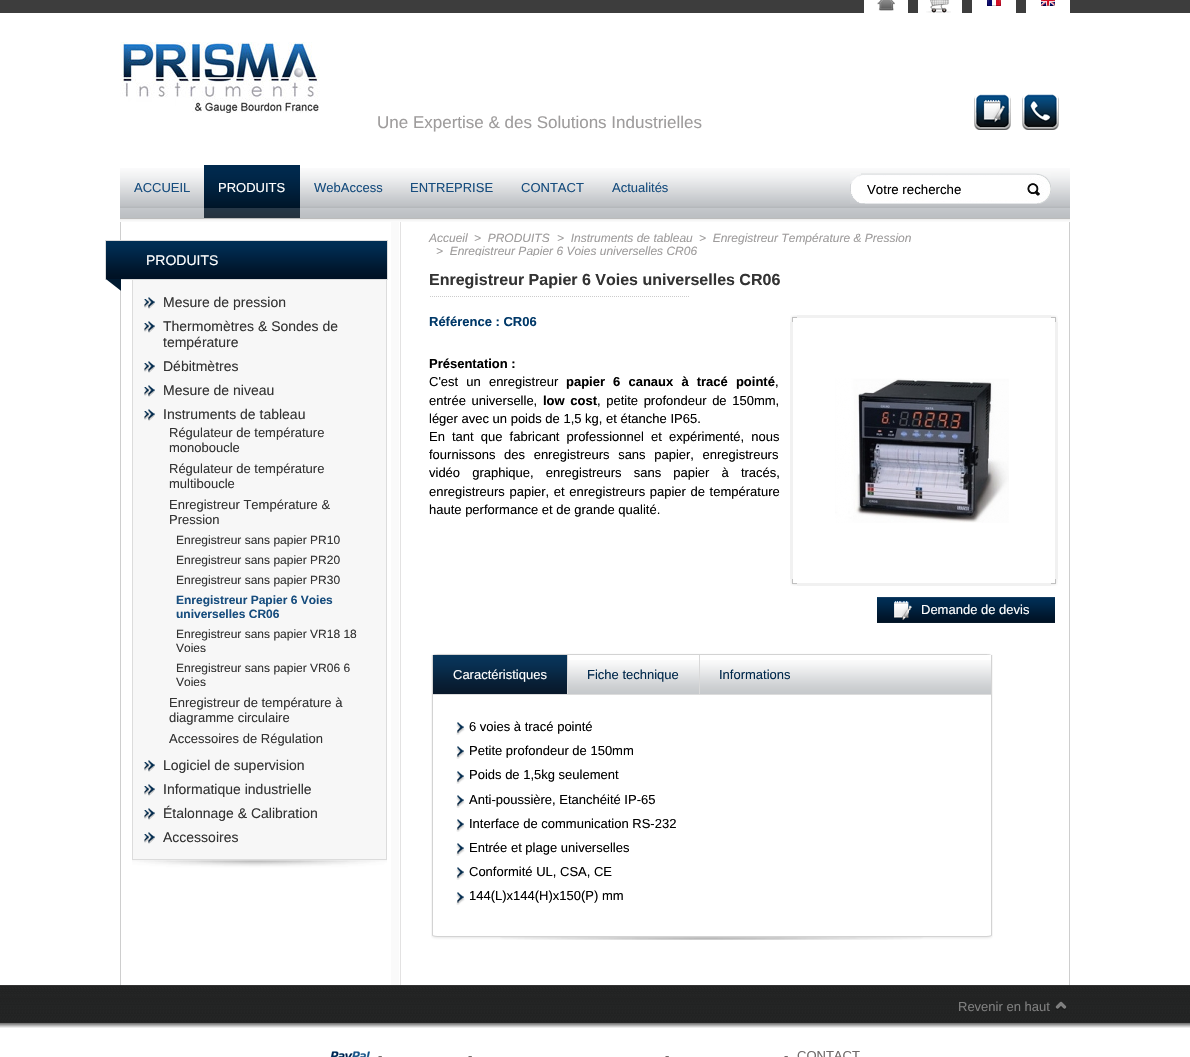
#include "include/core/SkBlurTypes.h"
#include "include/core/SkCanvas.h"
#include "include/core/SkData.h"
#include "include/core/SkFont.h"
#include "include/core/SkFontMgr.h"
#include "include/core/SkImage.h"
#include "include/core/SkMaskFilter.h"
#include "include/core/SkPaint.h"
#include "include/core/SkPathBuilder.h"
#include "include/core/SkTextBlob.h"
#include "include/effects/SkDashPathEffect.h"
#include "include/effects/SkGradientShader.h"
#include "include/utils/SkParsePath.h"

extern sk_sp<SkFontMgr> fontMgr;

void draw(SkCanvas* canvas) {
    SkPaint p;
    p.setAntiAlias(true);
    auto font = [&](const char* family, int weight, float size, bool italic = false) {
        SkFontStyle style(weight, SkFontStyle::kNormal_Width,
            italic ? SkFontStyle::kItalic_Slant : SkFontStyle::kUpright_Slant);
        SkFont result(fontMgr->matchFamilyStyle(family, style), size);
        result.setSubpixel(true);
        return result;
    };
    auto drawTracked = [&](const char* s, float x, float y, const SkFont& font, const SkPaint& ink, float letter, float word) {
        std::vector<SkGlyphID> glyphs(font.countText(s, strlen(s), SkTextEncoding::kUTF8));
        std::vector<float> xs(glyphs.size());
        font.textToGlyphs(s, strlen(s), SkTextEncoding::kUTF8, glyphs);
        font.getXPos(glyphs, xs, x);
        float extra = 0;
        for (size_t i = 0; i < glyphs.size(); i++) {
            xs[i] += extra;
            extra += letter + word * (glyphs[i] == font.unicharToGlyph(' '));
        }
        canvas->drawTextBlob(SkTextBlob::MakeFromPosHGlyphs(glyphs, xs, y, font), 0, 0, ink);
    };
    auto drawPhoto = [&](const char* path, float l, float t, float r, float b) {
        auto image = SkImages::DeferredFromEncodedData(SkData::MakeFromFileName(path));
        canvas->drawImageRect(image, SkRect::MakeLTRB(l, t, r, b), SkSamplingOptions());
    };
    canvas->clear(0xFFFFFFFF);
    p.setColor(0xFF3D3D3D);
    canvas->drawRect(SkRect::MakeLTRB(0, 0, 1190, 13), p);
    p.setColor(0xFFFFFFFF);
    canvas->drawRect(SkRect::MakeLTRB(864, 0, 908, 13), p);
    drawPhoto("media/1.png", 877, 0, 895, 11);
    canvas->drawRect(SkRect::MakeLTRB(918, 0, 962, 13), p);
    drawPhoto("media/2.png", 926, 0, 951, 13);
    canvas->drawRect(SkRect::MakeLTRB(972, 0, 1016, 13), p);
    drawPhoto("media/3.png", 987, 0, 1001, 6);
    canvas->drawRect(SkRect::MakeLTRB(1026, 0, 1070, 13), p);
    drawPhoto("media/4.png", 1041, 0, 1055, 6);
    drawPhoto("media/5.png", 120, 42, 320, 113);
    auto font1 = font("Liberation Sans", 400, 17);
    p.setColor(0xFF9E9C9C);
    canvas->drawString("Une Expertise & des Solutions Industrielles", 377, 128, font1, p);
    drawPhoto("media/6.png", 974, 94, 1011, 130);
    drawPhoto("media/7.png", 1022, 94, 1059, 130);
    p.setColor(0xFFCECECE);
    canvas->drawRect(SkRect::MakeLTRB(1069, 220, 1070, 985), p);
    canvas->drawRect(SkRect::MakeLTRB(120, 220, 121, 985), p);
    drawPhoto("media/8.png", 120, 168, 1070, 222);
    auto font2 = font("Liberation Sans", 400, 13);
    p.setColor(0xFF174D7E);
    canvas->drawString("ACCUEIL", 134, 192, font2, p);
    drawPhoto("media/9.png", 204, 165, 300, 218);
    p.setColor(0xFFFFFFFF);
    canvas->drawString("PRODUITS", 218, 192, font2, p);
    p.setColor(0xFF174D7E);
    {
        const struct { const char* s; float x, y; } items[] = {
            {"WebAccess", 314, 192},
            {"ENTREPRISE", 410, 192},
            {"CONTACT", 521, 192},
            {"Actualités", 612, 192},
        };
        for (auto [s, x, y] : items) {
            canvas->drawString(s, x, y, font2, p);
        }
    }
    drawPhoto("media/10.png", 850, 173, 1051, 204);
    auto font3 = font("Liberation Sans", 400, 13.25f);
    p.setColor(0xFF000000);
    canvas->drawString("Votre recherche", 867, 194, font3, p);
    drawPhoto("media/11.png", 1027, 183, 1043, 198);
    drawPhoto("media/12.png", 391, 222, 401, 985);
    p.setColor(0xFFF7F7F7);
    canvas->drawRect(SkRect::MakeLTRB(133, 280, 386, 859), p);
    drawPhoto("media/13.png", 132, 860, 387, 868);
    drawPhoto("media/14.png", 106, 241, 387, 279);
    p.setStyle(SkPaint::kStroke_Style);
    p.setStrokeWidth(1);
    p.setColor(0xFFDCDCDC);
    canvas->drawRect(SkRect::MakeLTRB(105.5f, 240.5f, 387.5f, 279.5f), p);
    auto font4 = font("Liberation Sans", 400, 14);
    p.setStyle(SkPaint::kFill_Style);
    p.setColor(0xFFFFFFFF);
    canvas->drawString("PRODUITS", 146, 265, font4, p);
    drawPhoto("media/15.png", 106, 279, 121, 291);
    {
        const struct { float l, t, r, b; SkColor color; } items[] = {
            {386, 280, 387, 860, 0xFFDCDCDC},
            {132, 859, 387, 860, 0xFFDCDCDC},
            {132, 280, 133, 860, 0xFFDCDCDC},
        };
        for (auto [l, t, r, b, color] : items) {
            p.setColor(color);
            canvas->drawRect(SkRect::MakeLTRB(l, t, r, b), p);
        }
    }
    drawPhoto("media/16.png", 144, 297, 155, 309);
    p.setColor(0xFF333333);
    canvas->drawString("Mesure de pression", 163, 307, font4, p);
    drawPhoto("media/16.png", 144, 321, 155, 333);
    canvas->drawString("Thermomètres & Sondes de", 163, 331, font4, p);
    canvas->drawString("température", 163, 347, font4, p);
    drawPhoto("media/16.png", 144, 361, 155, 373);
    canvas->drawString("Débitmètres", 163, 371, font4, p);
    drawPhoto("media/16.png", 144, 385, 155, 397);
    canvas->drawString("Mesure de niveau", 163, 395, font4, p);
    drawPhoto("media/16.png", 144, 409, 155, 421);
    canvas->drawString("Instruments de tableau", 163, 419, font4, p);
    {
        const struct { const char* s; float x, y; } items[] = {
            {"Régulateur de température", 169, 437},
            {"monoboucle", 169, 452},
            {"Régulateur de température", 169, 473},
            {"multiboucle", 169, 488},
            {"Enregistreur Température &", 169, 509},
            {"Pression", 169, 524},
        };
        for (auto [s, x, y] : items) {
            canvas->drawString(s, x, y, font2, p);
        }
    }
    auto font5 = font("Liberation Sans", 400, 12);
    {
        const struct { const char* s; float x, y; } items[] = {
            {"Enregistreur sans papier PR10", 176, 544},
            {"Enregistreur sans papier PR20", 176, 564},
            {"Enregistreur sans papier PR30", 176, 584},
        };
        for (auto [s, x, y] : items) {
            canvas->drawString(s, x, y, font5, p);
        }
    }
    auto font6 = font("Liberation Sans", 700, 12);
    p.setColor(0xFF174D7E);
    canvas->drawString("Enregistreur Papier 6 Voies", 176, 604, font6, p);
    canvas->drawString("universelles CR06", 176, 618, font6, p);
    p.setColor(0xFF333333);
    {
        const struct { const char* s; float x, y; } items[] = {
            {"Enregistreur sans papier VR18 18", 176, 638},
            {"Voies", 176, 652},
            {"Enregistreur sans papier VR06 6", 176, 672},
            {"Voies", 176, 686},
        };
        for (auto [s, x, y] : items) {
            canvas->drawString(s, x, y, font5, p);
        }
    }
    {
        const struct { const char* s; float x, y; } items[] = {
            {"Enregistreur de température à", 169, 707},
            {"diagramme circulaire", 169, 722},
            {"Accessoires de Régulation", 169, 743},
        };
        for (auto [s, x, y] : items) {
            canvas->drawString(s, x, y, font2, p);
        }
    }
    drawPhoto("media/16.png", 144, 760, 155, 772);
    canvas->drawString("Logiciel de supervision", 163, 770, font4, p);
    drawPhoto("media/16.png", 144, 784, 155, 796);
    canvas->drawString("Informatique industrielle", 163, 794, font4, p);
    drawPhoto("media/16.png", 144, 808, 155, 820);
    canvas->drawString("Étalonnage & Calibration", 163, 818, font4, p);
    drawPhoto("media/16.png", 144, 832, 155, 844);
    canvas->drawString("Accessoires", 163, 842, font4, p);
    auto font7 = font("Liberation Sans", 400, 12, true);
    p.setColor(0xFF9E9C9C);
    {
        const struct { const char* s; float x, y; } items[] = {
            {"Accueil", 429, 242},
            {">  PRODUITS", 474, 242},
            {">  Instruments de tableau", 557, 242},
            {">  Enregistreur Température & Pression", 699, 242},
        };
        for (auto [s, x, y] : items) {
            canvas->drawString(s, x, y, font7, p);
        }
    }
    canvas->save();
    canvas->clipRect(SkRect::MakeLTRB(419, 220, 1069, 256));
    canvas->drawString(">  Enregistreur Papier 6 Voies universelles CR06", 436, 255, font7, p);
    canvas->restore();
    drawPhoto("media/17.png", 430, 296, 689, 297);
    auto font8 = font("Liberation Sans", 700, 16);
    p.setColor(0xFF333333);
    canvas->drawString("Enregistreur Papier 6 Voies universelles CR06", 429, 285, font8, p);
    auto font9 = font("Liberation Sans", 700, 13);
    p.setColor(0xFF003868);
    canvas->drawString("Référence : CR06", 429, 326, font9, p);
    p.setColor(0xFF000000);
    canvas->drawString("Présentation :", 429, 368, font9, p);
    drawTracked("C'est un enregistreur", 429, 386, font2, p, 0, 4.5f);
    drawTracked("papier 6 canaux à tracé pointé", 566, 386, font9, p, 0, 4.5f);
    canvas->drawString(",", 775, 386, font2, p);
    drawTracked("entrée universelle,", 429, 405, font2, p, 0, 2);
    drawTracked("low cost", 543, 405, font9, p, 0, 2);
    drawTracked(", petite profondeur de 150mm,", 597, 405, font2, p, 0, 2);
    canvas->drawString("léger avec un poids de 1,5 kg, et étanche IP65.", 429, 423, font2, p);
    drawTracked("En tant que fabricant professionnel et expérimenté, nous", 429, 441, font2, p, 0, 3.5f);
    drawTracked("fournissons des enregistreurs sans papier, enregistreurs", 429, 459, font2, p, 0, 5);
    drawTracked("vidéo graphique, enregistreurs sans papier à tracés,", 429, 477, font2, p, 0, 8.5f);
    drawTracked("enregistreurs papier, et enregistreurs papier de température", 429, 496, font2, p, 0, 1);
    canvas->drawString("haute performance et de grande qualité.", 429, 514, font2, p);
    drawPhoto("media/18.png", 790, 315, 797, 322);
    p.setColor(0xFFF1F1F1);
    canvas->drawRect(SkRect::MakeLTRB(797, 315, 1051, 318), p);
    drawPhoto("media/19.png", 1051, 315, 1058, 322);
    canvas->drawRect(SkRect::MakeLTRB(790, 322, 793, 579), p);
    drawPhoto("media/20.png", 835, 378, 1009, 523);
    canvas->drawRect(SkRect::MakeLTRB(1055, 322, 1058, 579), p);
    drawPhoto("media/21.png", 790, 579, 797, 586);
    canvas->drawRect(SkRect::MakeLTRB(797, 583, 1051, 586), p);
    drawPhoto("media/22.png", 1051, 579, 1058, 586);
    drawPhoto("media/23.png", 877, 597, 1055, 623);
    p.setColor(0xFFFFFFFF);
    canvas->drawString("Demande de devis", 921, 614, font2, p);
    drawPhoto("media/24.png", 431, 655, 993, 935);
    drawPhoto("media/25.png", 431, 653, 993, 655);
    drawPhoto("media/26.png", 568, 660, 991, 694);
    p.setColor(0xFFDCDCDC);
    canvas->drawRect(SkRect::MakeLTRB(433, 694, 991, 695), p);
    drawPhoto("media/27.png", 433, 655, 567, 694);
    p.setColor(0xFFFFFFFF);
    canvas->drawString("Caractéristiques", 453, 679, font2, p);
    p.setColor(0xFFD9D9D9);
    canvas->drawRect(SkRect::MakeLTRB(567, 655, 568, 694), p);
    p.setColor(0xFF00284B);
    canvas->drawString("Fiche technique", 587, 679, font2, p);
    p.setColor(0xFFD9D9D9);
    canvas->drawRect(SkRect::MakeLTRB(699, 655, 700, 694), p);
    p.setColor(0xFF00284B);
    canvas->drawString("Informations", 719, 679, font2, p);
    drawPhoto("media/28.png", 456, 722, 465, 735);
    p.setColor(0xFF000000);
    canvas->drawString("6 voies à tracé pointé", 469, 731, font2, p);
    drawPhoto("media/28.png", 456, 746, 465, 759);
    canvas->drawString("Petite profondeur de 150mm", 469, 755, font2, p);
    drawPhoto("media/28.png", 456, 771, 465, 784);
    canvas->drawString("Poids de 1,5kg seulement", 469, 779, font2, p);
    drawPhoto("media/28.png", 456, 795, 465, 808);
    canvas->drawString("Anti-poussière, Etanchéité IP-65", 469, 804, font2, p);
    drawPhoto("media/28.png", 456, 819, 465, 832);
    canvas->drawString("Interface de communication RS-232", 469, 828, font2, p);
    drawPhoto("media/28.png", 456, 843, 465, 856);
    canvas->drawString("Entrée et plage universelles", 469, 852, font2, p);
    drawPhoto("media/28.png", 456, 867, 465, 880);
    canvas->drawString("Conformité UL, CSA, CE", 469, 876, font2, p);
    drawPhoto("media/28.png", 456, 892, 465, 905);
    canvas->drawString("144(L)x144(H)x150(P) mm", 469, 900, font2, p);
    drawPhoto("media/29.png", 431, 935, 993, 940);
    drawPhoto("media/30.png", 0, 985, 1190, 1028);
    drawPhoto("media/31.png", 1055, 1001, 1067, 1010);
    p.setColor(0xFF7F7F7F);
    canvas->drawString("Revenir en haut", 958, 1011, font2, p);
    drawPhoto("media/32.png", 330, 1051, 370, 1057);
    p.setColor(0xFF6F6969);
    {
        const struct { const char* s; float x, y; } items[] = {
            {"-", 378, 1060},
            {"-", 468, 1060},
            {"-", 665, 1060},
            {"-", 784, 1060},
            {"CONTACT", 797, 1060},
        };
        for (auto [s, x, y] : items) {
            canvas->drawString(s, x, y, font2, p);
        }
    }
}
